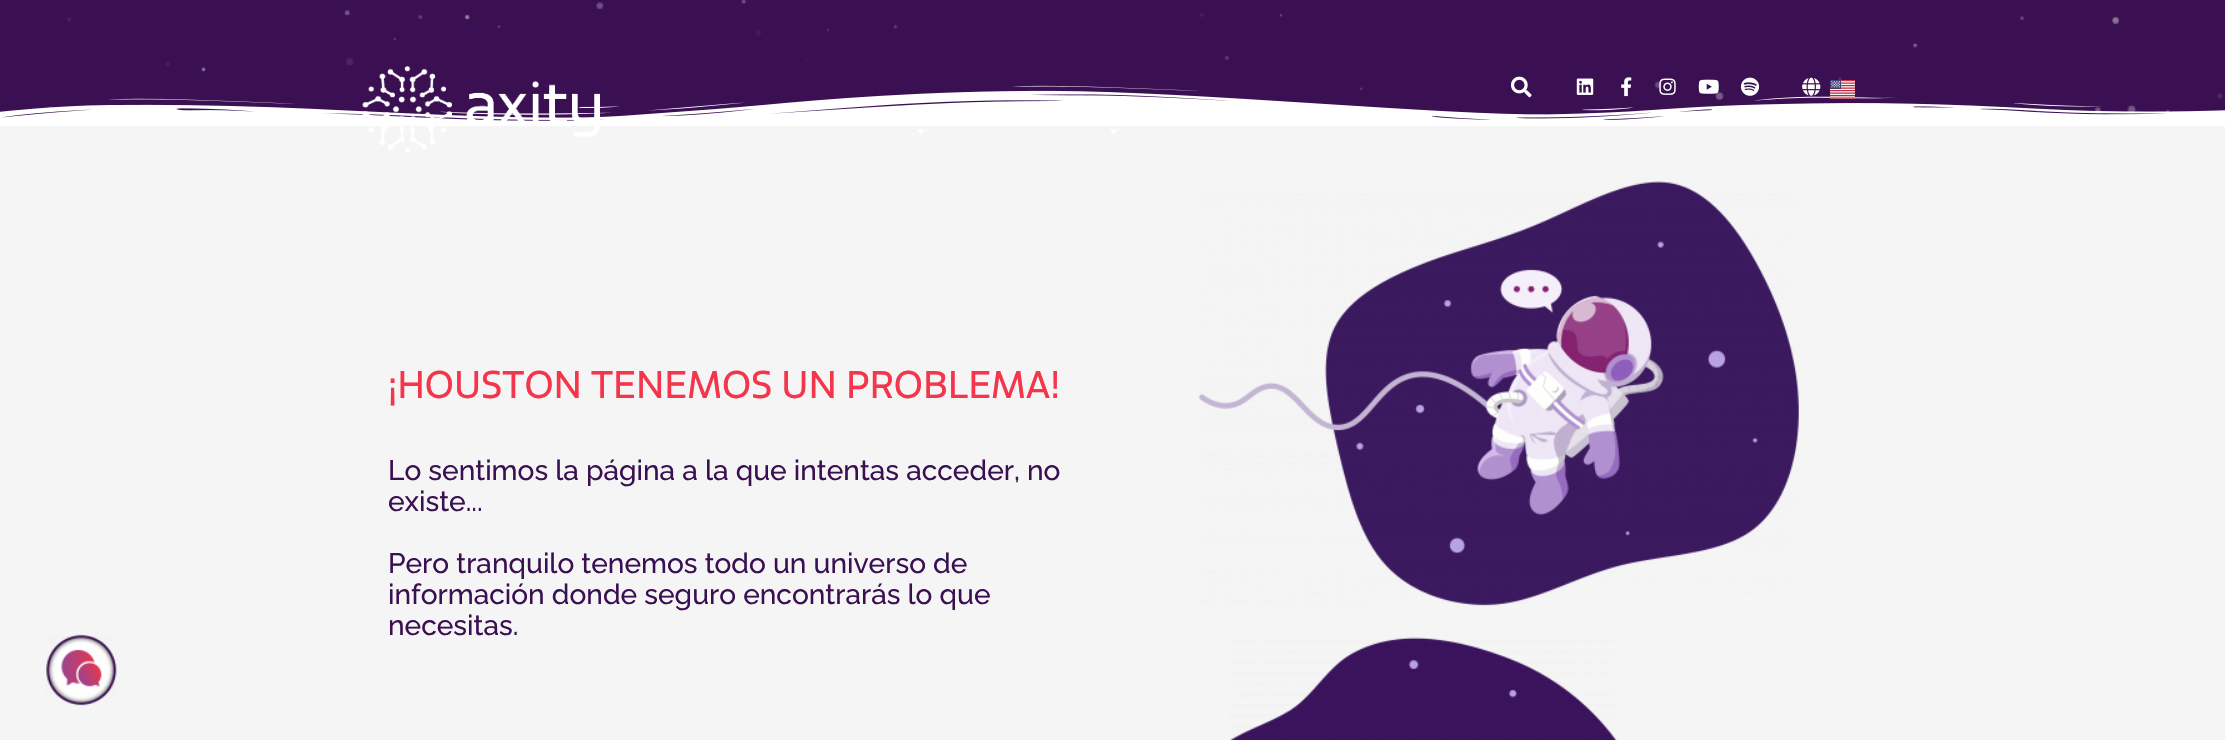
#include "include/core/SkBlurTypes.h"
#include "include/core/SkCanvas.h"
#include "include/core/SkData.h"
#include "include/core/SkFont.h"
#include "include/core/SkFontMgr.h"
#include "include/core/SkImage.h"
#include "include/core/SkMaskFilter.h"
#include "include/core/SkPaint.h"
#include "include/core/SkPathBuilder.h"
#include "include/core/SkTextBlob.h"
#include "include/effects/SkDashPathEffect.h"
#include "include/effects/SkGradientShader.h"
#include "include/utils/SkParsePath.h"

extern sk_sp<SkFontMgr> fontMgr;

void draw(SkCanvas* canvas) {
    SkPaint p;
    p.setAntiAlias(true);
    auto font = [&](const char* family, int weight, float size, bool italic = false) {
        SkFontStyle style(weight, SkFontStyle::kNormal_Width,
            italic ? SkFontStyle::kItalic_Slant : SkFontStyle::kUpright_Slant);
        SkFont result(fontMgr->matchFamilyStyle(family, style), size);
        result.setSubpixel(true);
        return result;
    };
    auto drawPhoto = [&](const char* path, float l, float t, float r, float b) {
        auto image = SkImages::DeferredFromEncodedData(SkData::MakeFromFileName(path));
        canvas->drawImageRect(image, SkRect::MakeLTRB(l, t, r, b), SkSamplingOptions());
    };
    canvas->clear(0xFFF5F5F5);
    p.setColor(0xFF3A1052);
    canvas->drawRect(SkRect::MakeLTRB(0, 0, 2225, 121), p);
    drawPhoto("media/10.png", 9, 0, 2223, 120);
    drawPhoto("media/11.png", 0, 85, 2225, 126);
    drawPhoto("media/1.png", 362, 66, 600, 152);
    drawPhoto("media/2.png", 1510, 76, 1532, 98);
    drawPhoto("media/3.png", 1576, 78, 1594, 95);
    drawPhoto("media/4.png", 1621, 77, 1632, 97);
    drawPhoto("media/5.png", 1659, 78, 1676, 95);
    drawPhoto("media/6.png", 1698, 79, 1719, 94);
    drawPhoto("media/7.png", 1740, 77, 1760, 96);
    drawPhoto("media/8.png", 1802, 77, 1821, 96);
    drawPhoto("media/9.png", 1830, 80, 1855, 99);
    p.setColor(0xFFFFFFFF);
    canvas->drawPath(SkPathBuilder().moveTo(925, 129.5f).lineTo(921, 135).lineTo(917, 129.5f).close().detach(), p);
    canvas->drawPath(SkPathBuilder().moveTo(1117.5f, 129.5f).lineTo(1113.5f, 135).lineTo(1109.5f, 129.5f).close().detach(), p);
    auto font1 = font("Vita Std", 400, 37.5f);
    p.setColor(0xFFF4364C);
    canvas->drawString("¡HOUSTON TENEMOS UN PROBLEMA!", 388, 398, font1, p);
    auto font2 = font("Raleway", 500, 28.1f);
    p.setColor(0xFF3A1052);
    {
        const struct { const char* s; float x, y; } items[] = {
            {"Lo sentimos la página a la que intentas acceder, no", 388, 480},
            {"existe...", 388, 511},
            {"Pero tranquilo tenemos todo un universo de", 388, 573},
            {"información donde seguro encontrarás lo que", 388, 604},
            {"necesitas.", 388, 635},
        };
        for (auto [s, x, y] : items) {
            canvas->drawString(s, x, y, font2, p);
        }
    }
    drawPhoto("media/12.png", 1198, 181, 1799, 606);
    drawPhoto("media/13.png", 1229, 637, 1617, 740);
    drawPhoto("media/14.png", 46, 634, 117, 706);
}
